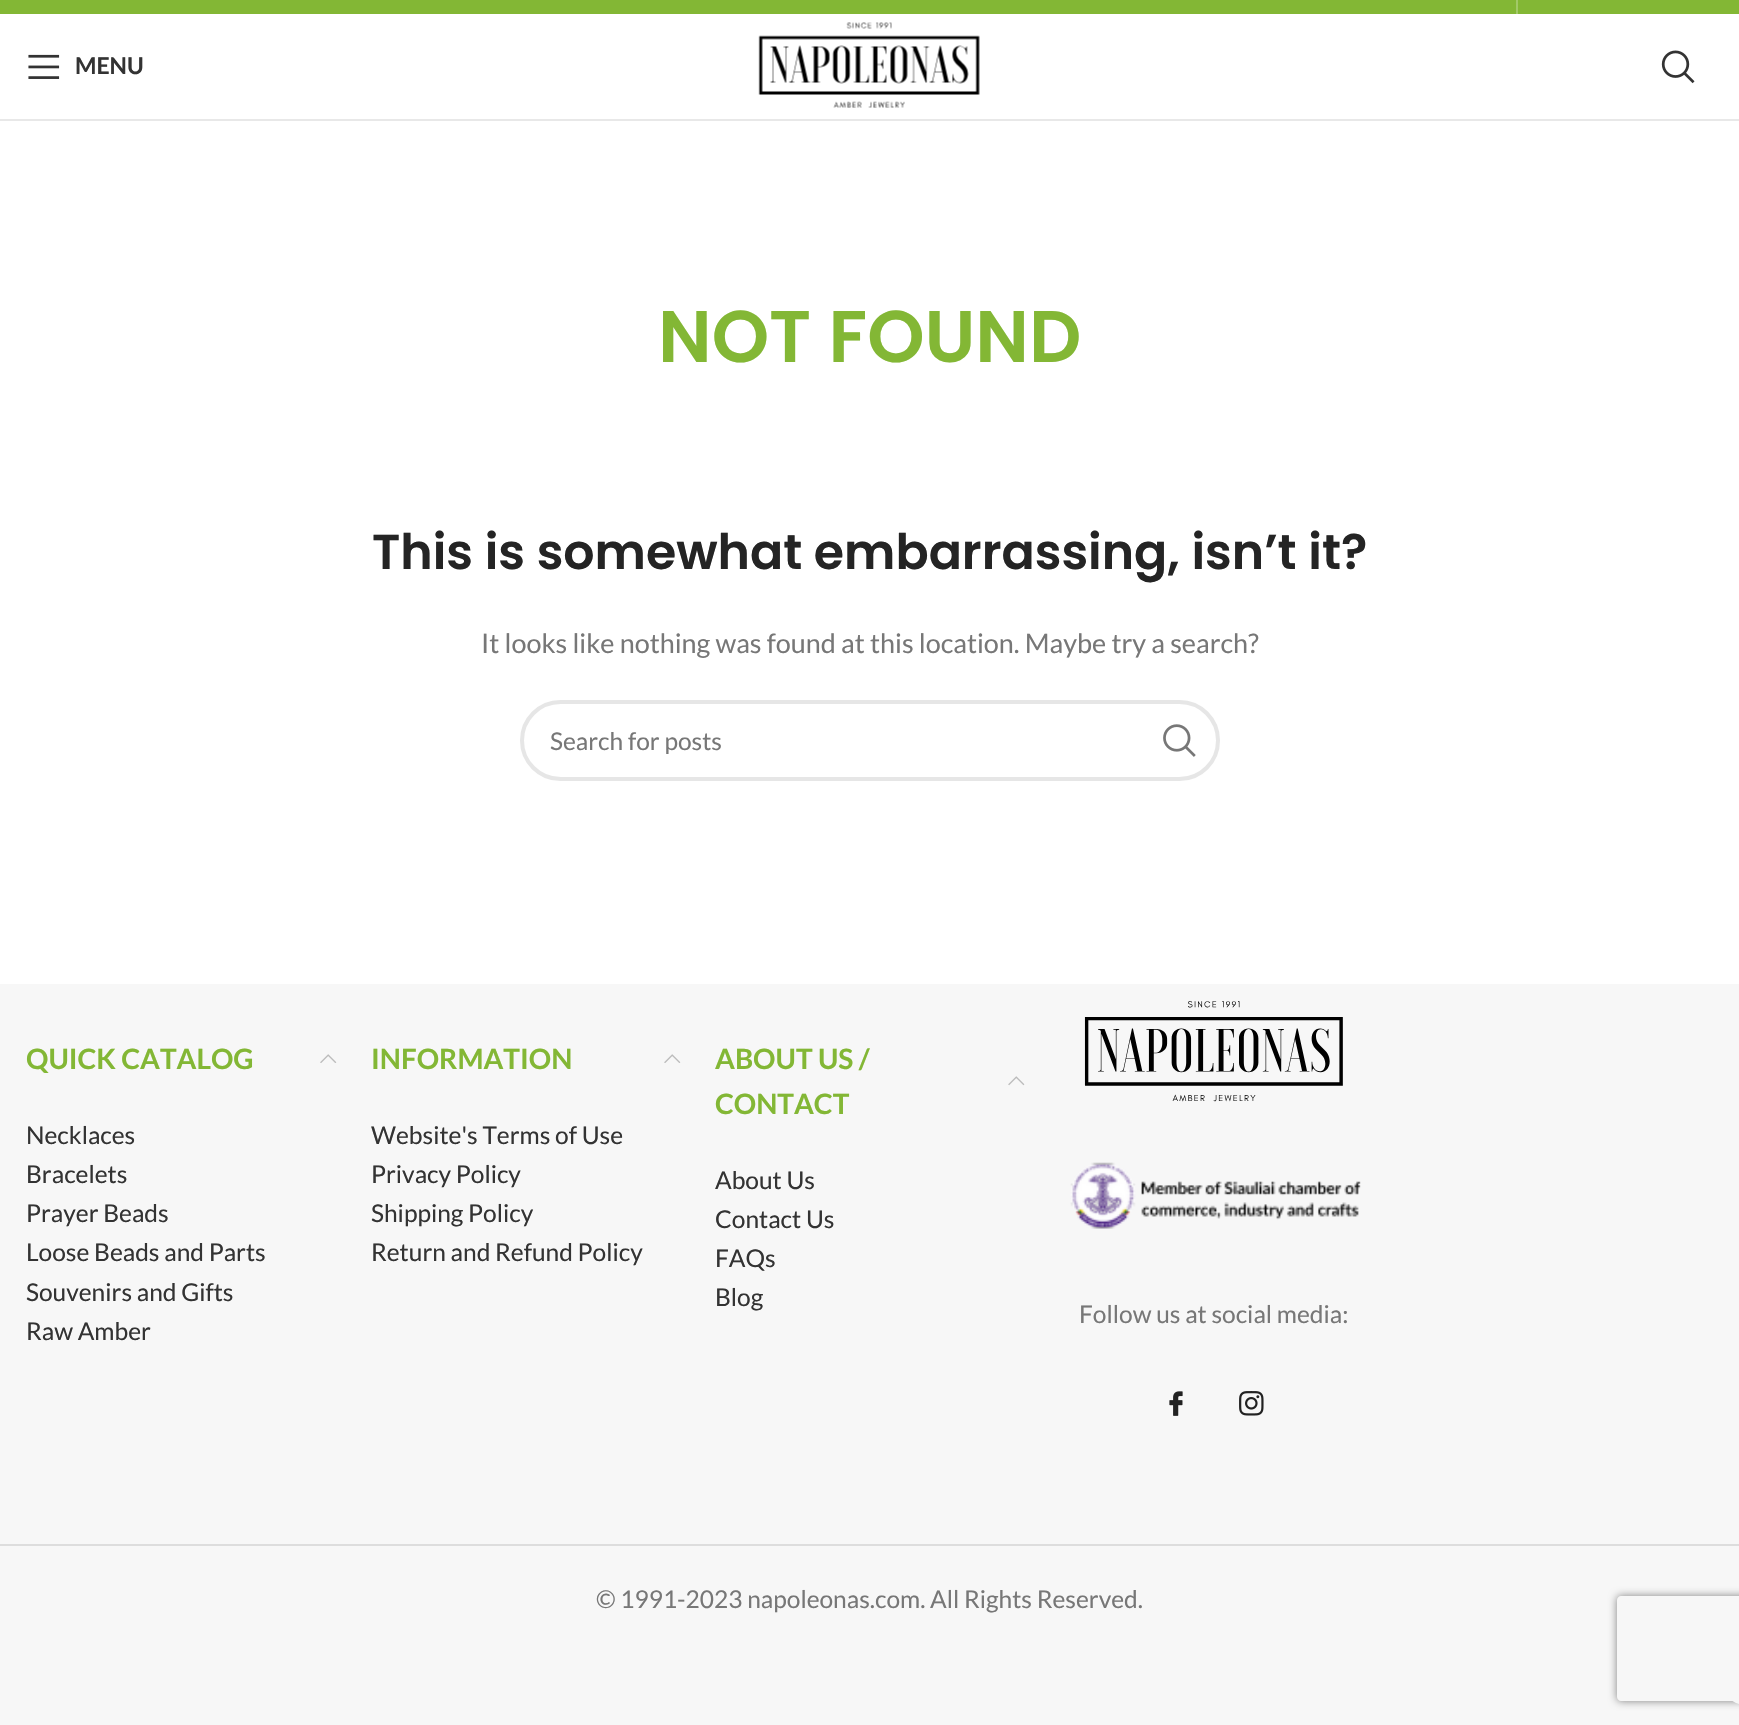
#include "include/core/SkBlurTypes.h"
#include "include/core/SkCanvas.h"
#include "include/core/SkData.h"
#include "include/core/SkFont.h"
#include "include/core/SkFontMgr.h"
#include "include/core/SkImage.h"
#include "include/core/SkMaskFilter.h"
#include "include/core/SkPaint.h"
#include "include/core/SkPathBuilder.h"
#include "include/core/SkTextBlob.h"
#include "include/effects/SkDashPathEffect.h"
#include "include/effects/SkGradientShader.h"
#include "include/utils/SkParsePath.h"

extern sk_sp<SkFontMgr> fontMgr;

void draw(SkCanvas* canvas) {
    SkPaint p;
    p.setAntiAlias(true);
    auto font = [&](const char* family, int weight, float size, bool italic = false) {
        SkFontStyle style(weight, SkFontStyle::kNormal_Width,
            italic ? SkFontStyle::kItalic_Slant : SkFontStyle::kUpright_Slant);
        SkFont result(fontMgr->matchFamilyStyle(family, style), size);
        result.setSubpixel(true);
        return result;
    };
    auto drawPhoto = [&](const char* path, float l, float t, float r, float b) {
        auto image = SkImages::DeferredFromEncodedData(SkData::MakeFromFileName(path));
        canvas->drawImageRect(image, SkRect::MakeLTRB(l, t, r, b), SkSamplingOptions());
    };
    canvas->clear(0xFFFFFFFF);
    {
        const struct { float l, t, r, b; SkColor color; } items[] = {
            {0, 0, 1739, 14, 0xFF83B735},
            {1516, 0, 1518, 14, 0xFFA2C968},
            {0, 119, 1739, 121, 0xFFE8E8E8},
        };
        for (auto [l, t, r, b, color] : items) {
            p.setColor(color);
            canvas->drawRect(SkRect::MakeLTRB(l, t, r, b), p);
        }
    }
    drawPhoto("media/1.png", 28, 54, 60, 79);
    auto font1 = font("Lato", 700, 23);
    p.setColor(0xFF333333);
    canvas->drawString("MENU", 75, 74, font1, p);
    drawPhoto("media/2.png", 758, 22, 980, 108);
    drawPhoto("media/3.png", 1661, 50, 1695, 84);
    auto font2 = font("Poppins", 600, 73);
    p.setColor(0xFF83B735);
    canvas->drawString("NOT FOUND", 658, 362, font2, p);
    auto font3 = font("Poppins", 600, 49);
    p.setColor(0xFF242424);
    canvas->drawString("This is somewhat embarrassing, isn’t it?", 372, 569, font3, p);
    auto font4 = font("Lato", 400, 26.95f);
    p.setColor(0xFF777777);
    canvas->drawString("It looks like nothing was found at this location. Maybe try a search?", 481, 653, font4, p);
    p.setStyle(SkPaint::kStroke_Style);
    p.setStrokeWidth(4);
    p.setColor(0xFFE6E6E6);
    canvas->drawRoundRect(SkRect::MakeLTRB(522, 702, 1218, 779), 38.5f, 38.5f, p);
    canvas->save();
    canvas->clipRect(SkRect::MakeLTRB(550, 725, 1083, 754));
    auto font5 = font("Lato", 400, 24.5f);
    p.setStyle(SkPaint::kFill_Style);
    p.setColor(0xFF777777);
    canvas->drawString("Search for posts", 550, 750, font5, p);
    canvas->restore();
    drawPhoto("media/4.png", 1163, 724, 1196, 757);
    p.setColor(0xFFF7F7F7);
    canvas->drawRect(SkRect::MakeLTRB(0, 984, 1739, 1725), p);
    auto font6 = font("Lato", 700, 28);
    p.setColor(0xFF83B735);
    canvas->drawString("QUICK CATALOG", 26, 1069, font6, p);
    drawPhoto("media/5.png", 320, 1054, 337, 1063);
    p.setColor(0xFF333333);
    {
        const struct { const char* s; float x, y; } items[] = {
            {"Necklaces", 26, 1144},
            {"Bracelets", 26, 1183},
            {"Prayer Beads", 26, 1222},
            {"Loose Beads and Parts", 26, 1261},
            {"Souvenirs and Gifts", 26, 1301},
            {"Raw Amber", 26, 1340},
        };
        for (auto [s, x, y] : items) {
            canvas->drawString(s, x, y, font5, p);
        }
    }
    p.setColor(0xFF83B735);
    canvas->drawString("INFORMATION", 371, 1069, font6, p);
    drawPhoto("media/6.png", 664, 1054, 681, 1063);
    p.setColor(0xFF333333);
    {
        const struct { const char* s; float x, y; } items[] = {
            {"Website's Terms of Use", 371, 1144},
            {"Privacy Policy", 371, 1183},
            {"Shipping Policy", 371, 1222},
            {"Return and Refund Policy", 371, 1261},
        };
        for (auto [s, x, y] : items) {
            canvas->drawString(s, x, y, font5, p);
        }
    }
    p.setColor(0xFF83B735);
    canvas->drawString("ABOUT US /", 715, 1069, font6, p);
    canvas->drawString("CONTACT", 715, 1114, font6, p);
    drawPhoto("media/7.png", 1008, 1076, 1025, 1086);
    p.setColor(0xFF333333);
    {
        const struct { const char* s; float x, y; } items[] = {
            {"About Us", 715, 1189},
            {"Contact Us", 715, 1228},
            {"FAQs", 715, 1267},
            {"Blog", 715, 1306},
        };
        for (auto [s, x, y] : items) {
            canvas->drawString(s, x, y, font5, p);
        }
    }
    drawPhoto("media/8.png", 1084, 1001, 1343, 1102);
    drawPhoto("media/9.png", 1070, 1162, 1361, 1229);
    p.setColor(0xFF777777);
    canvas->drawString("Follow us at social media:", 1079, 1323, font5, p);
    drawPhoto("media/10.png", 1169, 1391, 1183, 1416);
    drawPhoto("media/11.png", 1239, 1391, 1264, 1416);
    p.setColor(0xFFDDDDDD);
    canvas->drawRect(SkRect::MakeLTRB(0, 1544, 1739, 1546), p);
    p.setColor(0xFF777777);
    canvas->drawString("© 1991-2023 napoleonas.com. All Rights Reserved.", 596, 1608, font5, p);
    canvas->save();
    canvas->clipPath(SkPathBuilder(SkPathFillType::kEvenOdd).moveTo(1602, 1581).lineTo(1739, 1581).lineTo(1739, 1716).lineTo(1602, 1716).close().moveTo(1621, 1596).lineTo(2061, 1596).cubicTo(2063, 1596, 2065, 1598, 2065, 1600).lineTo(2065, 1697).cubicTo(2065, 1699, 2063, 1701, 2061, 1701).lineTo(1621, 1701).cubicTo(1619, 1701, 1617, 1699, 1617, 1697).lineTo(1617, 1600).cubicTo(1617, 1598, 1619, 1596, 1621, 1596).close().detach(), true);
    p.setColor(0xFF808080);
    p.setMaskFilter(SkMaskFilter::MakeBlur(kNormal_SkBlurStyle, 4.5f));
    canvas->drawRoundRect(SkRect::MakeLTRB(1617, 1596, 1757, 1701), 4, 4, p);
    p.setMaskFilter(nullptr);
    canvas->restore();
    p.setColor(0xFFF7F7F7);
    canvas->drawRoundRect(SkRect::MakeLTRB(1719, 1635, 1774, 1705), 35, 35, p);
}
